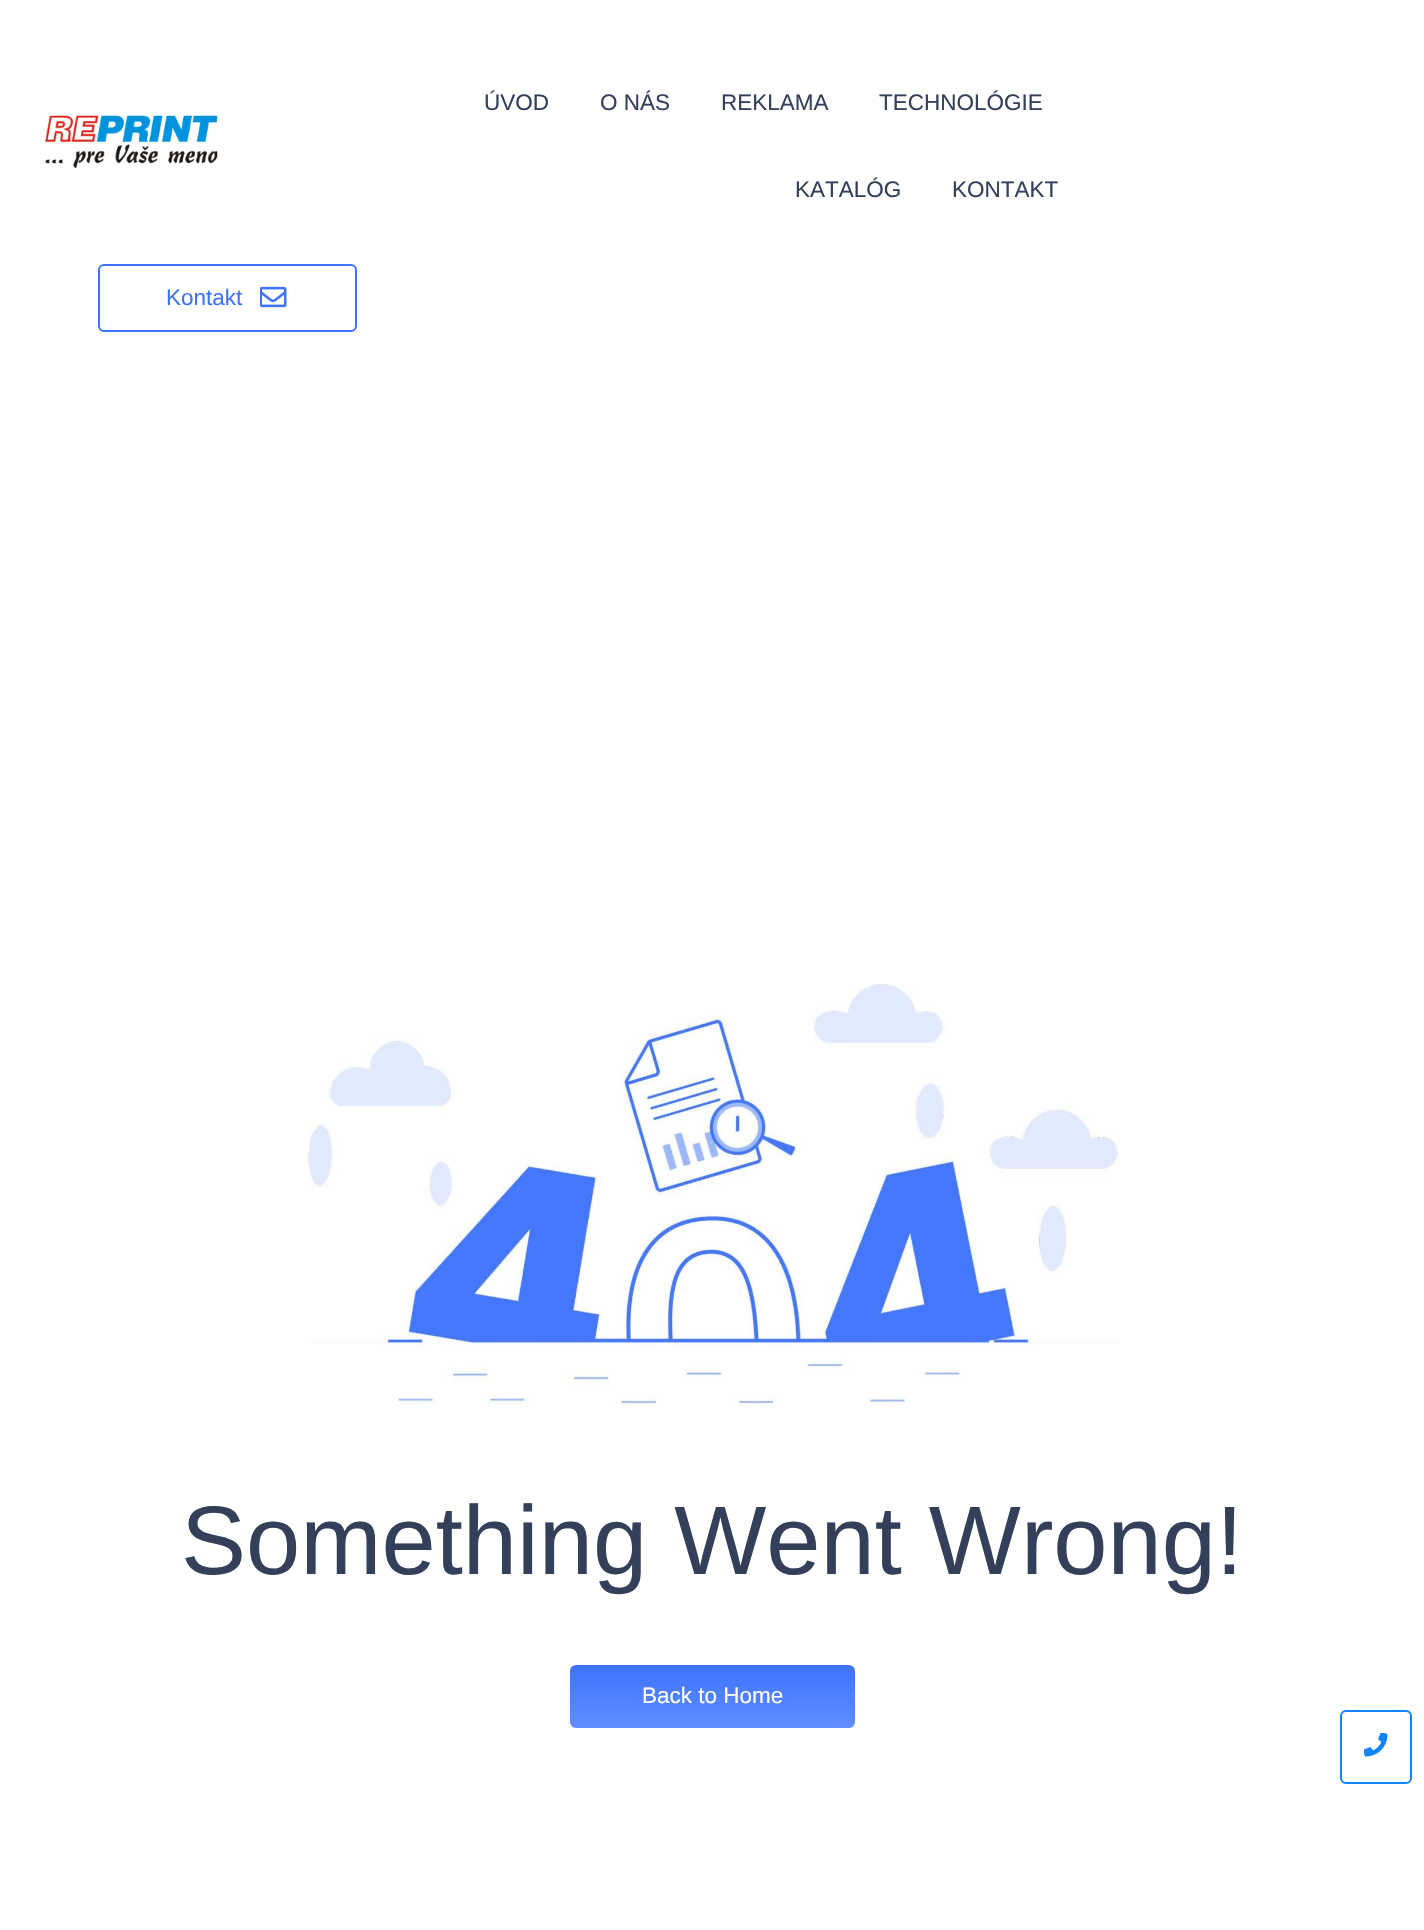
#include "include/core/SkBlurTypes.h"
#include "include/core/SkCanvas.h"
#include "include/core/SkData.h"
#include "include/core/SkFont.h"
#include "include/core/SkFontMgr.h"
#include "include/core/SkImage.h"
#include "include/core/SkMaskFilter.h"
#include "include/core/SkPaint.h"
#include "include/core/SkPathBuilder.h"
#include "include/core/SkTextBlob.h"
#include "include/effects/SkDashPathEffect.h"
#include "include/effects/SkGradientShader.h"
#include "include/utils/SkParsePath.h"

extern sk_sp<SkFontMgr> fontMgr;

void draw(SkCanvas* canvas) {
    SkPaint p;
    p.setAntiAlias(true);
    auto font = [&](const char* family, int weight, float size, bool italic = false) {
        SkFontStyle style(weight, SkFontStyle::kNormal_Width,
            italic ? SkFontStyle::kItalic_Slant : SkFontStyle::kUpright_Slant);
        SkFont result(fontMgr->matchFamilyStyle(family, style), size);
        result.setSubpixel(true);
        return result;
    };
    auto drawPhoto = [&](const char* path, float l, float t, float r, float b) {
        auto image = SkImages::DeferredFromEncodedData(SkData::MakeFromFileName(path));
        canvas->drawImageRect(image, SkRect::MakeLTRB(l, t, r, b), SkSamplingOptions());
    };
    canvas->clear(0xFFFFFFFF);
    drawPhoto("media/1.png", 45, 115, 218, 168);
    auto font1 = font("Liberation Sans", 400, 22.5f);
    p.setColor(0xFF343F5A);
    {
        const struct { const char* s; float x, y; } items[] = {
            {"ÚVOD", 484, 110},
            {"O NÁS", 600, 110},
            {"REKLAMA", 721, 110},
            {"TECHNOLÓGIE", 879, 110},
            {"KATALÓG", 795, 197},
            {"KONTAKT", 952, 197},
        };
        for (auto [s, x, y] : items) {
            canvas->drawString(s, x, y, font1, p);
        }
    }
    p.setStyle(SkPaint::kStroke_Style);
    p.setStrokeWidth(2);
    p.setColor(0xFF3D73FF);
    canvas->drawRoundRect(SkRect::MakeLTRB(99, 265, 356, 331), 5, 5, p);
    p.setStyle(SkPaint::kFill_Style);
    canvas->drawString("Kontakt", 166, 305, font1, p);
    drawPhoto("media/2.png", 260, 286, 287, 308);
    drawPhoto("media/3.png", 308, 984, 1120, 1406);
    auto font2 = font("Liberation Sans", 400, 97.5f);
    p.setColor(0xFF343F5A);
    canvas->drawString("Something Went Wrong!", 181, 1574, font2, p);
    {
        const SkColor colors[] = {0xFF3D73FF, 0xFF608DFF};
        const float stops[] = {0, 1};
        const SkPoint ends[] = {{713, 1665}, {713, 1728}};
        p.setShader(SkGradientShader::MakeLinear(ends, colors, stops, 2, SkTileMode::kClamp));
        p.setAlpha(255);
    }
    canvas->drawRoundRect(SkRect::MakeLTRB(570, 1665, 855, 1728), 6, 6, p);
    p.setShader(nullptr);
    p.setColor(0xFFFFFFFF);
    canvas->drawString("Back to Home", 642, 1703, font1, p);
    p.setStyle(SkPaint::kStroke_Style);
    p.setColor(0xFF1085FA);
    canvas->drawRoundRect(SkRect::MakeLTRB(1341, 1711, 1411, 1783), 5, 5, p);
    drawPhoto("media/4.png", 1364, 1733, 1388, 1757);
}
